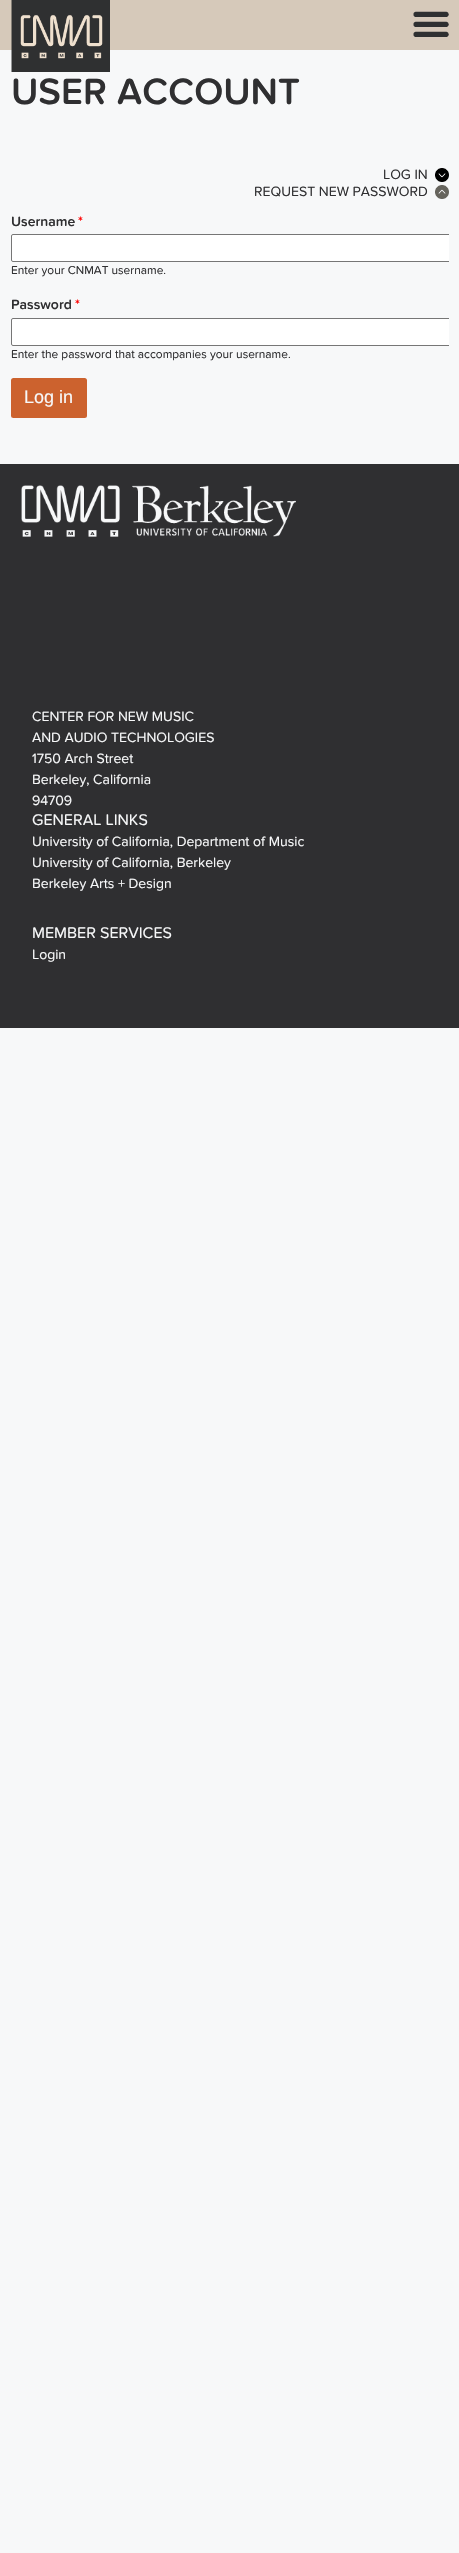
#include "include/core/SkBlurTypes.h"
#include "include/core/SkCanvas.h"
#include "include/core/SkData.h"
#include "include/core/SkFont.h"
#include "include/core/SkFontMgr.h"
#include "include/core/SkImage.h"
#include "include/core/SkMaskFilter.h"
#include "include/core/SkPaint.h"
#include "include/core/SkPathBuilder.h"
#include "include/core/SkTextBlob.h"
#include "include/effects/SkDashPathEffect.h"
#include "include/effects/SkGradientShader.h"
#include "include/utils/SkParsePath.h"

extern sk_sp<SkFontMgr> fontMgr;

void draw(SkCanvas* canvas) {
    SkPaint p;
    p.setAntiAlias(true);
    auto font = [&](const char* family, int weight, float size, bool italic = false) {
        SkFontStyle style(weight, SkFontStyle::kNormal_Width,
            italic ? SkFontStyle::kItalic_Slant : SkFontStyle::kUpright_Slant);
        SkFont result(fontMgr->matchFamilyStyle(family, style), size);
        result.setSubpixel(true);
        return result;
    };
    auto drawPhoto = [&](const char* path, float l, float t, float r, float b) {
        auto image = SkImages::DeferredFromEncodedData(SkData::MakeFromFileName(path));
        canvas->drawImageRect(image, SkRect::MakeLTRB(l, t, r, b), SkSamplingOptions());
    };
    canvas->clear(0xFFF7F8F9);
    p.setColor(0xFFD6C9BA);
    canvas->drawRect(SkRect::MakeLTRB(0, 0, 459, 50), p);
    drawPhoto("media/1.png", 413, 11, 449, 37);
    drawPhoto("media/2.png", 11, 0, 110, 72);
    auto font1 = font("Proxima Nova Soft", 600, 38);
    p.setColor(0xFF2F2F31);
    canvas->drawString("USER ACCOUNT", 11, 104, font1, p);
    auto font2 = font("Proxima Nova Soft", 400, 14);
    canvas->drawString("LOG IN", 383, 179, font2, p);
    drawPhoto("media/3.png", 435, 168, 449, 182);
    canvas->drawString("REQUEST NEW PASSWORD", 254, 196, font2, p);
    drawPhoto("media/4.png", 435, 185, 449, 199);
    auto font3 = font("Proxima Nova Soft", 600, 14);
    canvas->drawString("Username", 11, 226, font3, p);
    p.setColor(0xFFFF0000);
    canvas->drawString("*", 78, 226, font3, p);
    p.setColor(0xFFFFFFFF);
    canvas->drawPath(SkPathBuilder().moveTo(13, 234).lineTo(449, 234).lineTo(449, 262).lineTo(13, 262).cubicTo(12, 262, 11, 261, 11, 260).lineTo(11, 236).cubicTo(11, 235, 12, 234, 13, 234).close().detach(), p);
    canvas->save();
    canvas->clipRect(SkRect::MakeLTRB(11, 211, 449, 432));
    p.setStyle(SkPaint::kStroke_Style);
    p.setStrokeWidth(1);
    p.setColor(0xFF767676);
    canvas->drawRoundRect(SkRect::MakeLTRB(11.5f, 234.5f, 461.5f, 261.5f), 1.5f, 1.5f, p);
    canvas->restore();
    auto font4 = font("Proxima Nova Soft", 400, 11.9f);
    p.setStyle(SkPaint::kFill_Style);
    p.setColor(0xFF2F2F31);
    canvas->drawString("Enter your CNMAT username.", 11, 274, font4, p);
    canvas->drawString("Password", 11, 309, font3, p);
    p.setColor(0xFFFF0000);
    canvas->drawString("*", 75, 309, font3, p);
    p.setColor(0xFFFFFFFF);
    canvas->drawPath(SkPathBuilder().moveTo(13, 318).lineTo(449, 318).lineTo(449, 346).lineTo(13, 346).cubicTo(12, 346, 11, 345, 11, 344).lineTo(11, 320).cubicTo(11, 319, 12, 318, 13, 318).close().detach(), p);
    canvas->save();
    canvas->clipRect(SkRect::MakeLTRB(11, 211, 449, 432));
    p.setStyle(SkPaint::kStroke_Style);
    p.setColor(0xFF767676);
    canvas->drawRoundRect(SkRect::MakeLTRB(11.5f, 318.5f, 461.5f, 345.5f), 1.5f, 1.5f, p);
    canvas->restore();
    p.setStyle(SkPaint::kFill_Style);
    p.setColor(0xFF2F2F31);
    canvas->drawString("Enter the password that accompanies your username.", 11, 358, font4, p);
    p.setColor(0xFFCC622E);
    canvas->drawRoundRect(SkRect::MakeLTRB(11, 378, 87, 418), 2.5f, 2.5f, p);
    auto font5 = font("Liberation Sans", 400, 18);
    p.setColor(0xFFF7F8F9);
    canvas->drawString("Log in", 24, 403, font5, p);
    p.setColor(0xFF2F2F31);
    canvas->drawRect(SkRect::MakeLTRB(0, 464, 459, 1028), p);
    drawPhoto("media/5.png", 21, 485, 296, 537);
    p.setColor(0xFFF7F8F9);
    {
        const struct { const char* s; float x, y; } items[] = {
            {"CENTER FOR NEW MUSIC", 32, 721},
            {"AND AUDIO TECHNOLOGIES", 32, 742},
            {"1750 Arch Street", 32, 763},
            {"Berkeley, California", 32, 784},
            {"94709", 32, 805},
        };
        for (auto [s, x, y] : items) {
            canvas->drawString(s, x, y, font2, p);
        }
    }
    auto font6 = font("Proxima Nova Soft", 400, 16);
    canvas->drawString("GENERAL LINKS", 32, 825, font6, p);
    {
        const struct { const char* s; float x, y; } items[] = {
            {"University of California, Department of Music", 32, 846},
            {"University of California, Berkeley", 32, 867},
            {"Berkeley Arts + Design", 32, 888},
        };
        for (auto [s, x, y] : items) {
            canvas->drawString(s, x, y, font2, p);
        }
    }
    canvas->drawString("MEMBER SERVICES", 32, 938, font6, p);
    canvas->drawString("Login", 32, 959, font2, p);
}
